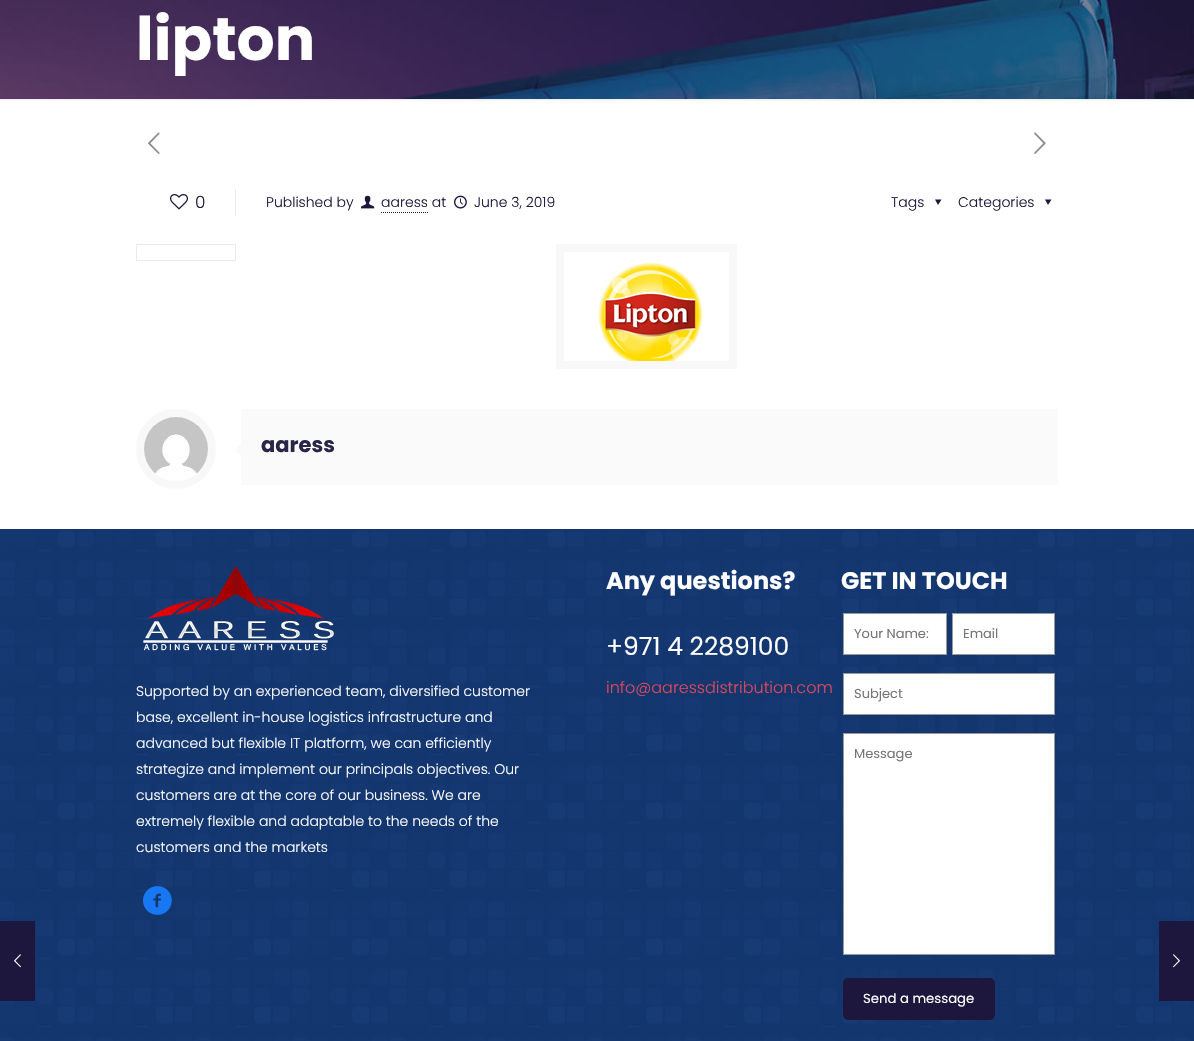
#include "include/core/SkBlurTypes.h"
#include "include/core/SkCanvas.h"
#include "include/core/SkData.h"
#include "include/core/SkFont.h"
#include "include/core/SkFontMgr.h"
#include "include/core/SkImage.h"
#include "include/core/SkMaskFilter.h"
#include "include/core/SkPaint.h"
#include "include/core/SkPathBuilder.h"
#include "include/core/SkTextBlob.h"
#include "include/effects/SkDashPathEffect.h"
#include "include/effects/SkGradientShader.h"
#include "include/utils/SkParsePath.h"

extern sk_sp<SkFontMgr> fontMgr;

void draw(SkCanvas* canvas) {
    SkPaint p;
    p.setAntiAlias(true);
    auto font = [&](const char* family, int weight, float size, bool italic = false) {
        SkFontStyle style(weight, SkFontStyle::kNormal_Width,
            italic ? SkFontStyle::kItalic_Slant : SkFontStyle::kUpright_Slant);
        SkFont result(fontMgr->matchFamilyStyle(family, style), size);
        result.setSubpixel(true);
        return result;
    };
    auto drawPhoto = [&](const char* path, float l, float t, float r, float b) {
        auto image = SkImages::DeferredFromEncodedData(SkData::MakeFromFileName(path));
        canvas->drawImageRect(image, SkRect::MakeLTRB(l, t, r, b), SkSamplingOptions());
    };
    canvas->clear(0xFFFFFFFF);
    drawPhoto("media/11.png", 0, 529, 1194, 1041);
    p.setColor(0xFF1E173D);
    canvas->drawRect(SkRect::MakeLTRB(0, 921, 35, 1001), p);
    drawPhoto("media/1.png", 14, 954, 21, 968);
    drawPhoto("media/2.png", 0, 0, 1194, 99);
    auto font1 = font("Poppins", 700, 60);
    p.setColor(0xFFFFFFFF);
    canvas->drawString("lipton", 136, 60, font1, p);
    drawPhoto("media/3.png", 0, 99, 1194, 101);
    drawPhoto("media/4.png", 148, 132, 160, 154);
    drawPhoto("media/5.png", 1034, 132, 1046, 154);
    drawPhoto("media/6.png", 170, 194, 188, 210);
    auto font2 = font("Poppins", 300, 17);
    p.setColor(0xFF1E173D);
    canvas->drawString("0", 195, 208, font2, p);
    p.setColor(0xFFEBEBEB);
    canvas->drawRect(SkRect::MakeLTRB(235, 189, 236, 216), p);
    auto font3 = font("Poppins", 300, 14);
    p.setColor(0xFF1E173D);
    canvas->drawString("Published by", 266, 207, font3, p);
    drawPhoto("media/7.png", 361, 195, 375, 209);
    canvas->drawString("aaress at", 381, 207, font3, p);
    p.setStyle(SkPaint::kStroke_Style);
    p.setStrokeWidth(1);
    p.setPathEffect(SkDashPathEffect::Make({{1, 1}}, 0));
    canvas->drawPath(SkPathBuilder().moveTo(381, 212.5f).lineTo(428, 212.5f).detach(), p);
    p.setPathEffect(nullptr);
    drawPhoto("media/8.png", 454, 195, 467, 209);
    p.setStyle(SkPaint::kFill_Style);
    canvas->drawString("June 3, 2019", 474, 207, font3, p);
    canvas->drawString("Tags", 891, 207, font3, p);
    canvas->drawPath(SkPathBuilder().moveTo(941.5f, 199.5f).lineTo(938, 205).lineTo(935, 199.5f).close().detach(), p);
    canvas->drawString("Categories", 958, 207, font3, p);
    canvas->drawPath(SkPathBuilder().moveTo(1051.5f, 199.5f).lineTo(1048, 205).lineTo(1045, 199.5f).close().detach(), p);
    p.setStyle(SkPaint::kStroke_Style);
    p.setColor(0xFFEBEBEB);
    canvas->drawRect(SkRect::MakeLTRB(136.5f, 244.5f, 235.5f, 260.5f), p);
    p.setStrokeWidth(8);
    p.setColor(0xFFF8F8F8);
    canvas->drawRect(SkRect::MakeLTRB(560, 248, 733, 365), p);
    drawPhoto("media/9.png", 598, 262, 703, 361);
    canvas->drawCircle(176, 449, 36, p);
    drawPhoto("media/10.png", 144, 417, 208, 474);
    p.setStyle(SkPaint::kFill_Style);
    p.setColor(0xFFFAFAFA);
    canvas->drawRect(SkRect::MakeLTRB(241, 409, 1058, 485), p);
    canvas->drawPath(SkPathBuilder().moveTo(241, 444).lineTo(241, 456).lineTo(235, 450).close().detach(), p);
    auto font4 = font("Poppins", 700, 21);
    p.setColor(0xFF2A264A);
    canvas->drawString("aaress", 261, 452, font4, p);
    drawPhoto("media/12.png", 143, 566, 334, 651);
    p.setColor(0xFFFFFFFF);
    {
        const struct { const char* s; float x, y; } items[] = {
            {"Supported by an experienced team, diversified customer", 136, 696},
            {"base, excellent in-house logistics infrastructure and", 136, 722},
            {"advanced but flexible IT platform, we can efficiently", 136, 748},
            {"strategize and implement our principals objectives. Our", 136, 774},
            {"customers are at the core of our business. We are", 136, 800},
            {"extremely flexible and adaptable to the needs of the", 136, 826},
            {"customers and the markets", 136, 852},
        };
        for (auto [s, x, y] : items) {
            canvas->drawString(s, x, y, font3, p);
        }
    }
    drawPhoto("media/13.png", 143, 886, 172, 915);
    auto font5 = font("Poppins", 700, 24);
    canvas->drawString("Any questions?", 606, 589, font5, p);
    auto font6 = font("Poppins", 400, 25);
    canvas->drawString("+971 4 2289100", 606, 655, font6, p);
    auto font7 = font("Poppins", 300, 16);
    p.setColor(0xFFDE485A);
    canvas->drawString("info@aaressdistribution.com", 606, 693, font7, p);
    p.setColor(0xFFFFFFFF);
    canvas->drawString("GET IN TOUCH", 841, 589, font5, p);
    canvas->drawRect(SkRect::MakeLTRB(843.5f, 613.5f, 946.5f, 654.5f), p);
    p.setStyle(SkPaint::kStroke_Style);
    p.setStrokeWidth(1);
    p.setColor(0xFF999999);
    canvas->drawRect(SkRect::MakeLTRB(843.5f, 613.5f, 946.5f, 654.5f), p);
    auto font8 = font("Poppins", 400, 13);
    p.setStyle(SkPaint::kFill_Style);
    p.setColor(0xFF757575);
    canvas->drawString("Your Name:", 854, 638, font8, p);
    p.setColor(0xFFFFFFFF);
    canvas->drawRect(SkRect::MakeLTRB(952.5f, 613.5f, 1054.5f, 654.5f), p);
    p.setStyle(SkPaint::kStroke_Style);
    p.setColor(0xFF999999);
    canvas->drawRect(SkRect::MakeLTRB(952.5f, 613.5f, 1054.5f, 654.5f), p);
    p.setStyle(SkPaint::kFill_Style);
    p.setColor(0xFF757575);
    canvas->drawString("Email", 963, 638, font8, p);
    p.setColor(0xFFFFFFFF);
    canvas->drawRect(SkRect::MakeLTRB(843.5f, 673.5f, 1054.5f, 714.5f), p);
    p.setStyle(SkPaint::kStroke_Style);
    p.setColor(0xFF999999);
    canvas->drawRect(SkRect::MakeLTRB(843.5f, 673.5f, 1054.5f, 714.5f), p);
    p.setStyle(SkPaint::kFill_Style);
    p.setColor(0xFF757575);
    canvas->drawString("Subject", 854, 698, font8, p);
    p.setColor(0xFFFFFFFF);
    canvas->drawRect(SkRect::MakeLTRB(843.5f, 733.5f, 1054.5f, 954.5f), p);
    p.setStyle(SkPaint::kStroke_Style);
    p.setColor(0xFF999999);
    canvas->drawRect(SkRect::MakeLTRB(843.5f, 733.5f, 1054.5f, 954.5f), p);
    p.setStyle(SkPaint::kFill_Style);
    p.setColor(0xFF757575);
    canvas->drawString("Message", 854, 758, font8, p);
    p.setColor(0xFF1E173D);
    canvas->drawRoundRect(SkRect::MakeLTRB(843, 978, 995, 1020), 5, 5, p);
    auto font9 = font("Poppins", 400, 13.25f);
    p.setColor(0xFFFFFFFF);
    canvas->drawString("Send a message", 863, 1003, font9, p);
    p.setColor(0xFF1E173D);
    canvas->drawRect(SkRect::MakeLTRB(1159, 921, 1194, 1001), p);
    drawPhoto("media/14.png", 1173, 954, 1180, 968);
}
